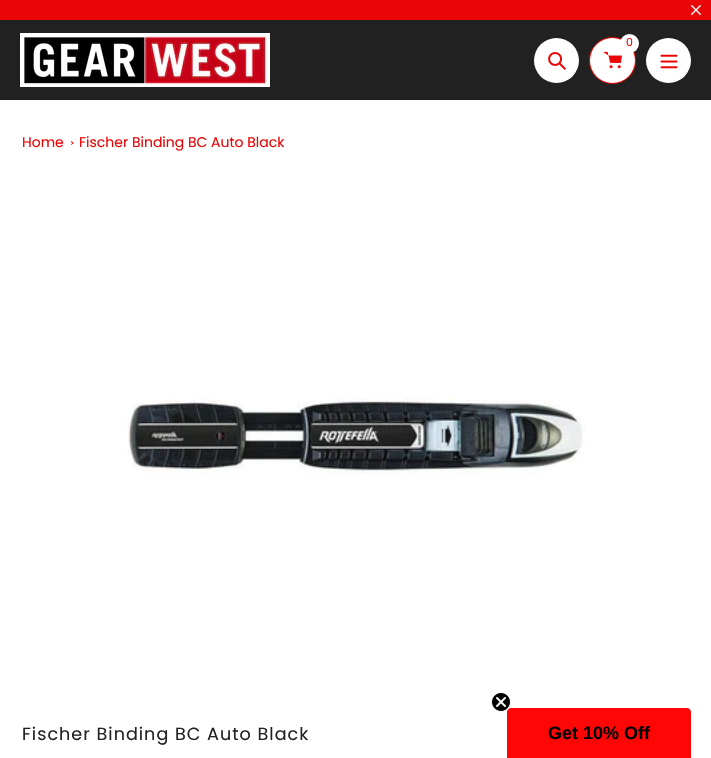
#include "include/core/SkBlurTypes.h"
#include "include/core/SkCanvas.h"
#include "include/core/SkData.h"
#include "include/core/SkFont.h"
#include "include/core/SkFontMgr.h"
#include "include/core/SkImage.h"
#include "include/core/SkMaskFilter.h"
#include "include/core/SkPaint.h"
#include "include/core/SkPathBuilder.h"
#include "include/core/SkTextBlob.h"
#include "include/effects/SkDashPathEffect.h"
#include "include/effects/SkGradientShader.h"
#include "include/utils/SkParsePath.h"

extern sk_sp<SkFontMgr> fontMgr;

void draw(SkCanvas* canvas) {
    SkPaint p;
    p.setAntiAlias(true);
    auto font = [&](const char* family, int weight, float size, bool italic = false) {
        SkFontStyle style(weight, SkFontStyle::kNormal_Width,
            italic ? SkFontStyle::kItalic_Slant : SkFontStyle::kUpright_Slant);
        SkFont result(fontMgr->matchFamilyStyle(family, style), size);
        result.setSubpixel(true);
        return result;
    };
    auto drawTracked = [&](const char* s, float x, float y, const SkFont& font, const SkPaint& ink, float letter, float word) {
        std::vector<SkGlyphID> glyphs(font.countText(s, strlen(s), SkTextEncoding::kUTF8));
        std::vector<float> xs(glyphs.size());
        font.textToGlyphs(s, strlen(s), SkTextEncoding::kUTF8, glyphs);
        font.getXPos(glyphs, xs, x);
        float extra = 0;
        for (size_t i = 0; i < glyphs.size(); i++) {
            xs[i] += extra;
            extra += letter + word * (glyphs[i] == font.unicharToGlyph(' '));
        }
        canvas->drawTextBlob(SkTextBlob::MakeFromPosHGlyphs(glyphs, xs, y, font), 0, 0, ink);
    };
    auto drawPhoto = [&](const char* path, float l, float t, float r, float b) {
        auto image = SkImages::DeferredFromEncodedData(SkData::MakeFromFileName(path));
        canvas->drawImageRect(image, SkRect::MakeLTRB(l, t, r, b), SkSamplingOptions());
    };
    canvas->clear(0xFFFFFFFF);
    p.setColor(0xFFEA0606);
    canvas->drawRect(SkRect::MakeLTRB(0, 0, 711, 20), p);
    drawPhoto("media/1.png", 691, 5, 701, 15);
    p.setColor(0xFF212121);
    canvas->drawRect(SkRect::MakeLTRB(0, 20, 711, 100), p);
    drawPhoto("media/2.png", 20, 33, 270, 87);
    p.setColor(0xFFFFFFFF);
    canvas->drawCircle(556.5f, 60.5f, 22.5f, p);
    drawPhoto("media/3.png", 548, 52, 566, 70);
    p.setColor(0xFFEA0606);
    canvas->drawCircle(612.5f, 60.5f, 23.5f, p);
    p.setColor(0xFFFFFFFF);
    canvas->drawCircle(612.5f, 60.5f, 22.5f, p);
    drawPhoto("media/4.png", 603, 51, 622, 69);
    canvas->drawCircle(629.5f, 43.5f, 9.5f, p);
    auto font1 = font("Poppins", 400, 11);
    p.setColor(0xFFEA0606);
    canvas->drawString("0", 626, 46, font1, p);
    p.setColor(0xFFFFFFFF);
    canvas->drawCircle(668.5f, 60.5f, 22.5f, p);
    drawPhoto("media/5.png", 660, 54, 678, 69);
    auto font2 = font("Poppins", 400, 14);
    p.setColor(0xFFEA0606);
    canvas->drawString("Home", 22, 147, font2, p);
    canvas->drawPath(SkPathBuilder().moveTo(71.5f, 141).lineTo(73.5f, 143).lineTo(73, 144).lineTo(71, 142).close().detach(), p);
    canvas->drawPath(SkPathBuilder().moveTo(73, 142.5f).lineTo(73.5f, 143).lineTo(71.5f, 145).lineTo(71, 144.5f).close().detach(), p);
    canvas->drawString("Fischer Binding BC Auto Black", 79, 147, font2, p);
    drawPhoto("media/6.png", 127, 397, 586, 476);
    auto font3 = font("Poppins", 400, 17.6f);
    p.setColor(0xFF232323);
    drawTracked("Fischer Binding BC Auto Black", 22, 740, font3, p, 1, 0);
    p.setColor(0xFFFC0606);
    canvas->drawPath(SkPathBuilder().moveTo(511, 708).lineTo(687, 708).cubicTo(689, 708, 691, 710, 691, 712).lineTo(691, 758).lineTo(507, 758).lineTo(507, 712).cubicTo(507, 710, 509, 708, 511, 708).close().detach(), p);
    drawPhoto("media/7.png", 491, 692, 511, 712);
    auto font4 = font("Liberation Sans", 700, 18);
    p.setColor(0xFF000000);
    canvas->drawString("Get 10% Off", 548, 739, font4, p);
}
